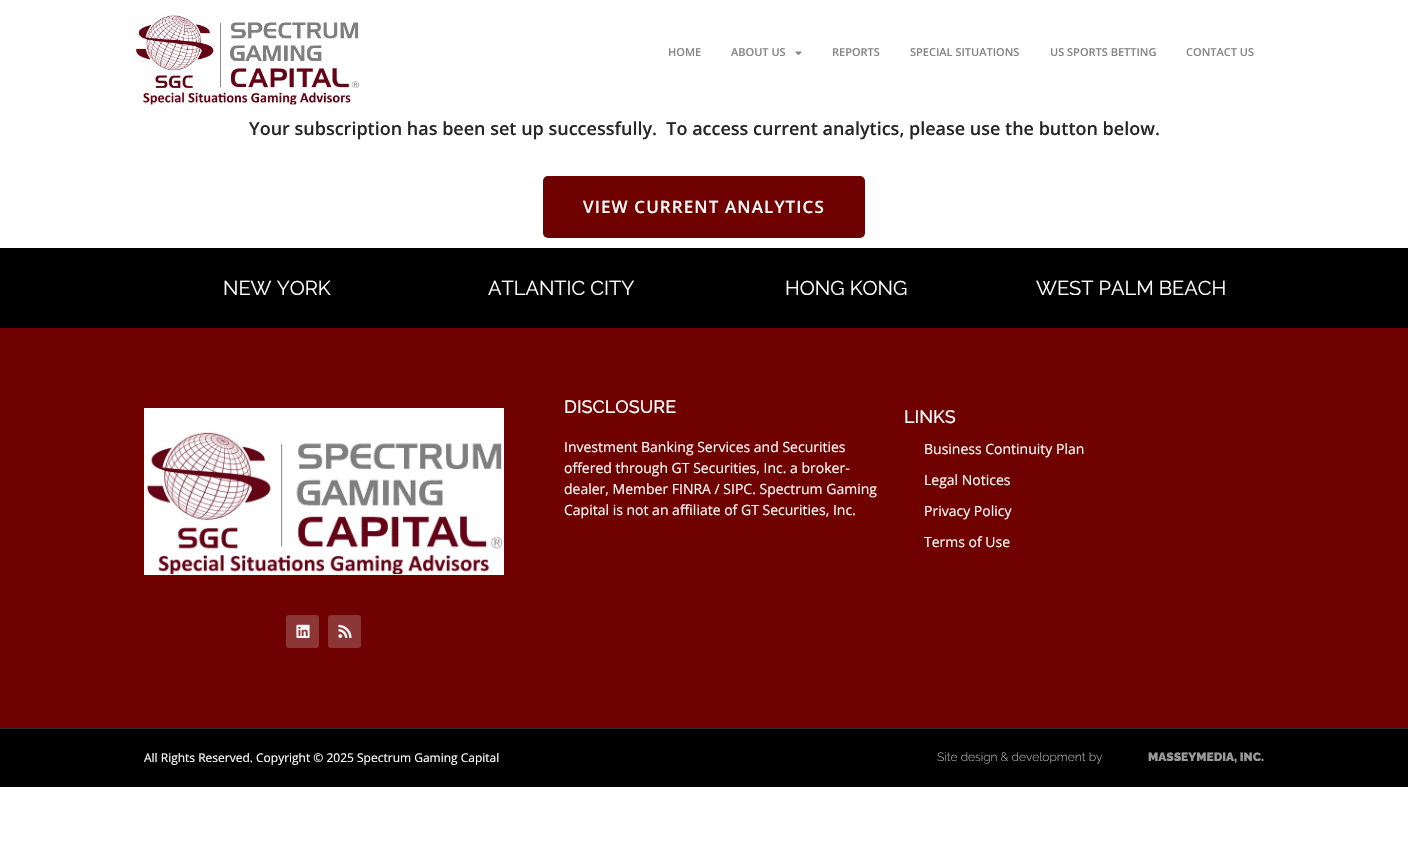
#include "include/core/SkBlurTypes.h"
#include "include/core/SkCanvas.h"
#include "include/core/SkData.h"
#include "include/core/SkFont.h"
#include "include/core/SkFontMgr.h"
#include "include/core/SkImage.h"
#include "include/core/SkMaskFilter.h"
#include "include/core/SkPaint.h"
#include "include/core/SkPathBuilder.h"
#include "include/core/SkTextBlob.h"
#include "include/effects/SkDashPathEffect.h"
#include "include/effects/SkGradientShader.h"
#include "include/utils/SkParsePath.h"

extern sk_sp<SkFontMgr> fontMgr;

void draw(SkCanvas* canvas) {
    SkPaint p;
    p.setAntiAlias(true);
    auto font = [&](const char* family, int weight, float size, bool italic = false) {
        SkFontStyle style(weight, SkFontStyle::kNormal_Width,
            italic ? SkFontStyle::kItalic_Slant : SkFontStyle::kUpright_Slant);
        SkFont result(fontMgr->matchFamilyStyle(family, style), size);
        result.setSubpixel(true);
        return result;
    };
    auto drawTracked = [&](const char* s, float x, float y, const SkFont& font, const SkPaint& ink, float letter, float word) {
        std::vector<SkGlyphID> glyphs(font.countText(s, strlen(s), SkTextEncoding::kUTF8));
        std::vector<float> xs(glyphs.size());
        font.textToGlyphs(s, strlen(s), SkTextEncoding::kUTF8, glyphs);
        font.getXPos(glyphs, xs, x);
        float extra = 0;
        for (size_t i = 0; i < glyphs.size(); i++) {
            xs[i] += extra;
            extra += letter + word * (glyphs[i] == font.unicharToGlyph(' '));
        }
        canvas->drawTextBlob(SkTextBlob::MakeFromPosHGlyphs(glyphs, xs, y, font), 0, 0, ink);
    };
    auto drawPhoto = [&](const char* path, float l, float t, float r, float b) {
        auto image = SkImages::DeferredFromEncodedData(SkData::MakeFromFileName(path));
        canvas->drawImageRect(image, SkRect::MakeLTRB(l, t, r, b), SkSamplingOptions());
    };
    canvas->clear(0xFFFFFFFF);
    drawPhoto("media/1.png", 135, 15, 359, 105);
    auto font1 = font("Open Sans", 600, 11);
    p.setColor(0xFF858585);
    canvas->drawString("HOME", 668, 56, font1, p);
    canvas->drawString("ABOUT US", 731, 56, font1, p);
    drawPhoto("media/2.png", 795, 51, 802, 56);
    {
        const struct { const char* s; float x, y; } items[] = {
            {"REPORTS", 832, 56},
            {"SPECIAL SITUATIONS", 910, 56},
            {"US SPORTS BETTING", 1050, 56},
            {"CONTACT US", 1186, 56},
        };
        for (auto [s, x, y] : items) {
            canvas->drawString(s, x, y, font1, p);
        }
    }
    auto font2 = font("Open Sans", 600, 18);
    p.setColor(0xFF262626);
    canvas->drawString("Your subscription has been set up successfully.  To access current analytics, please use the button below.", 249, 135, font2, p);
    p.setColor(0xFF6F0100);
    canvas->drawRoundRect(SkRect::MakeLTRB(543, 176, 865, 238), 5, 5, p);
    auto font3 = font("Open Sans", 600, 17);
    p.setColor(0xFFFFFFFF);
    drawTracked("VIEW CURRENT ANALYTICS", 583, 213, font3, p, 1.1f, 0);
    p.setColor(0xFF000000);
    canvas->drawRect(SkRect::MakeLTRB(0, 248, 1408, 328), p);
    auto font4 = font("Raleway", 400, 20);
    p.setColor(0xFFFFFFFF);
    {
        const struct { const char* s; float x, y; } items[] = {
            {"NEW YORK", 223, 295},
            {"ATLANTIC CITY", 488, 295},
            {"HONG KONG", 785, 295},
            {"WEST PALM BEACH", 1036, 295},
        };
        for (auto [s, x, y] : items) {
            canvas->drawString(s, x, y, font4, p);
        }
    }
    p.setColor(0xFF6F0100);
    canvas->drawRect(SkRect::MakeLTRB(0, 328, 1408, 728), p);
    drawPhoto("media/3.png", 144, 408, 504, 575);
    p.setColor(0xFF8D3636);
    canvas->drawRoundRect(SkRect::MakeLTRB(286, 615, 319, 648), 3, 3, p);
    drawPhoto("media/4.png", 296, 624, 310, 638);
    canvas->drawRoundRect(SkRect::MakeLTRB(328, 615, 361, 648), 3, 3, p);
    drawPhoto("media/5.png", 338, 624, 352, 638);
    auto font5 = font("Raleway", 500, 18);
    p.setColor(0xFFFFFFFF);
    canvas->drawString("DISCLOSURE", 564, 413, font5, p);
    auto font6 = font("Open Sans", 400, 14);
    {
        const struct { const char* s; float x, y; } items[] = {
            {"Investment Banking Services and Securities", 564, 452},
            {"offered through GT Securities, Inc. a broker-", 564, 473},
            {"dealer, Member FINRA / SIPC. Spectrum Gaming", 564, 494},
            {"Capital is not an affiliate of GT Securities, Inc.", 564, 515},
        };
        for (auto [s, x, y] : items) {
            canvas->drawString(s, x, y, font6, p);
        }
    }
    canvas->drawString("LINKS", 904, 423, font5, p);
    {
        const struct { const char* s; float x, y; } items[] = {
            {"Business Continuity Plan", 924, 454},
            {"Legal Notices", 924, 485},
            {"Privacy Policy", 924, 516},
            {"Terms of Use", 924, 547},
        };
        for (auto [s, x, y] : items) {
            canvas->drawString(s, x, y, font6, p);
        }
    }
    p.setColor(0xFF000000);
    canvas->drawRect(SkRect::MakeLTRB(0, 729, 1408, 787), p);
    p.setColor(0xFF303030);
    canvas->drawRect(SkRect::MakeLTRB(0, 728, 1408, 729), p);
    auto font7 = font("Open Sans", 400, 12);
    p.setColor(0xFFFFFFFF);
    canvas->drawString("All Rights Reserved. Copyright © 2025 Spectrum Gaming Capital", 144, 762, font7, p);
    auto font8 = font("Raleway", 300, 12);
    p.setColor(0xFFADADAD);
    canvas->drawString("Site design & development by", 937, 761, font8, p);
    auto font9 = font("Raleway", 900, 12);
    p.setColor(0xFF999999);
    canvas->drawString("MASSEYMEDIA, INC.", 1148, 761, font9, p);
}
